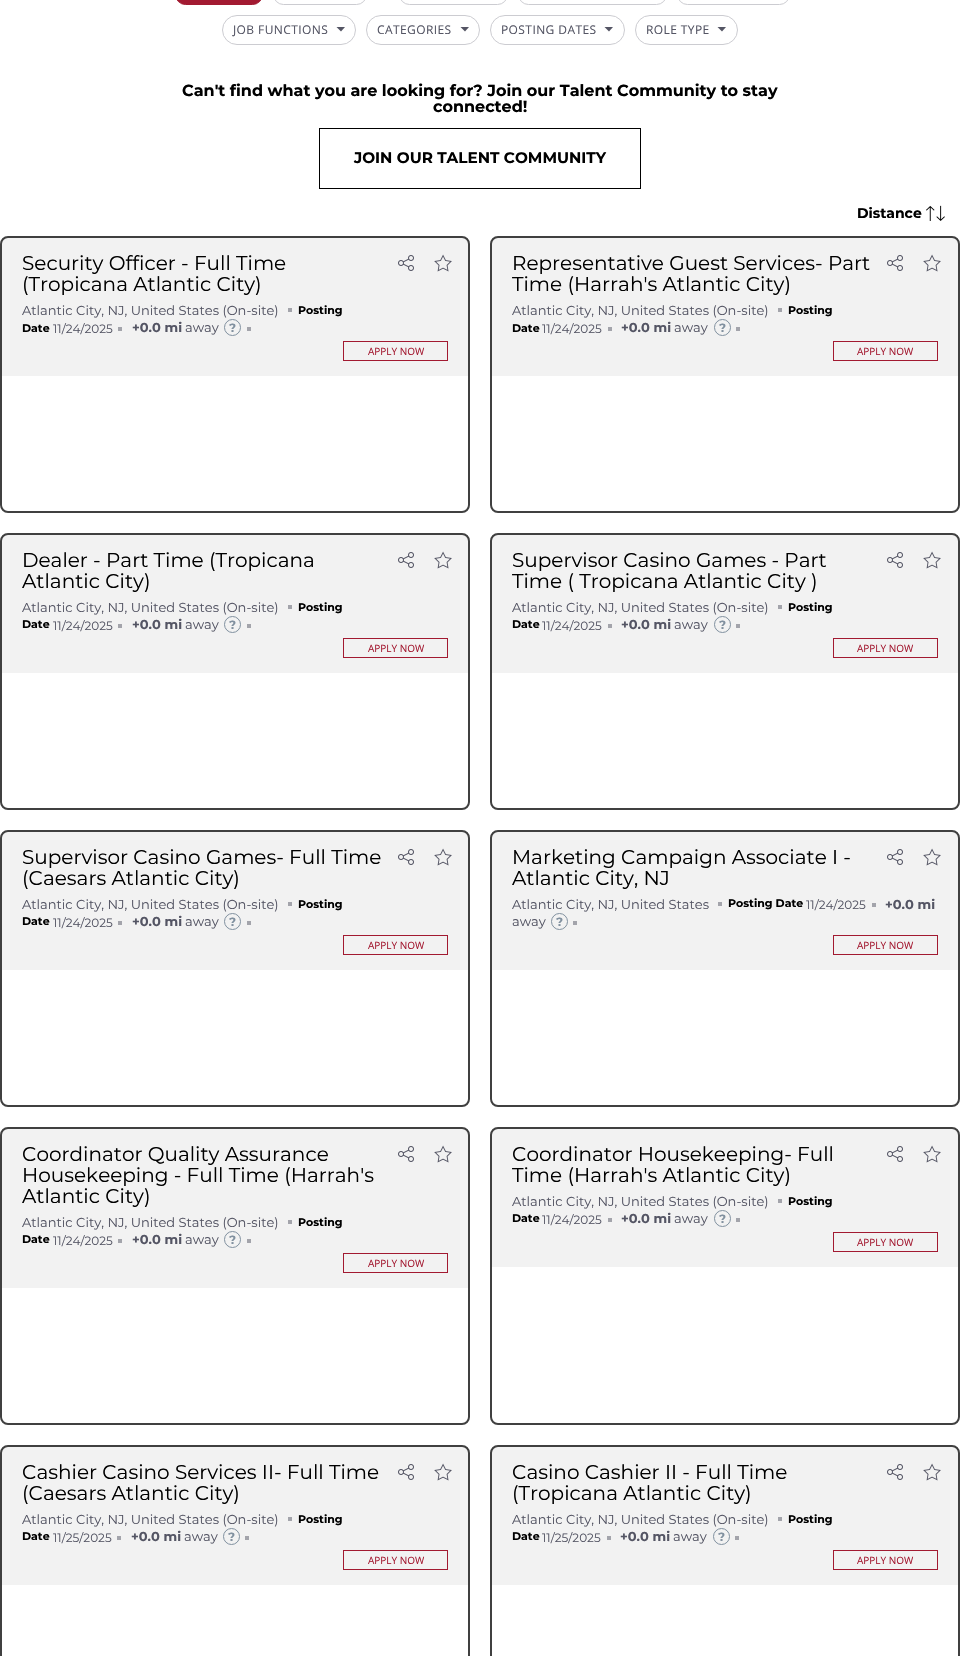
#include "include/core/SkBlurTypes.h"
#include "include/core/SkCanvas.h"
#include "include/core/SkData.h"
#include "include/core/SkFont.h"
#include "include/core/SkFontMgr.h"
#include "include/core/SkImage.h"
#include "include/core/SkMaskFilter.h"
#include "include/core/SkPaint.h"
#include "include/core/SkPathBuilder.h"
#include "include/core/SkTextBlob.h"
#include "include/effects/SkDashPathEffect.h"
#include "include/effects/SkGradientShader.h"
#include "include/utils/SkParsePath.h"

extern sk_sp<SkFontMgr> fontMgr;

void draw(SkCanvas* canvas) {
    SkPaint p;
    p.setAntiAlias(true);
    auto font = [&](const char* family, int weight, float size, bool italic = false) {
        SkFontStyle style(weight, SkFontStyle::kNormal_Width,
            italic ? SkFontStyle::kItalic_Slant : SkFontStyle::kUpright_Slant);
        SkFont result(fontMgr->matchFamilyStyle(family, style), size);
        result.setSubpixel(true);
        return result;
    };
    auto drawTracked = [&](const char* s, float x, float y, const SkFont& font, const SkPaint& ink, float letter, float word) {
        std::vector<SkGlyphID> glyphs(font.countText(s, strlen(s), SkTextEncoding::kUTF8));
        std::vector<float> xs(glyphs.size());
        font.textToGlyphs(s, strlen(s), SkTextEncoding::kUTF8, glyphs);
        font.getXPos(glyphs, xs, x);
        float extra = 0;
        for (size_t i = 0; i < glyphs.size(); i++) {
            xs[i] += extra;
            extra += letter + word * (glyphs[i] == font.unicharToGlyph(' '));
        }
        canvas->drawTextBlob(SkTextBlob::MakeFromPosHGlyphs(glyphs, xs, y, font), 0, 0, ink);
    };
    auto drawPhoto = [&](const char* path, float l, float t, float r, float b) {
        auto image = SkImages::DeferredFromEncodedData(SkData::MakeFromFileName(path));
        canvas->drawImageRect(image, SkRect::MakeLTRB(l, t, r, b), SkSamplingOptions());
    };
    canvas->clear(0xFFFFFFFF);
    p.setColor(0xFFA21A31);
    canvas->drawRoundRect(SkRect::MakeLTRB(175.5f, -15.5f, 262.5f, 4.5f), 14.5f, 14.5f, p);
    p.setStyle(SkPaint::kStroke_Style);
    p.setStrokeWidth(1);
    canvas->drawRoundRect(SkRect::MakeLTRB(175.5f, -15.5f, 262.5f, 4.5f), 14.5f, 14.5f, p);
    p.setColor(0xFFCCCCD1);
    canvas->drawRoundRect(SkRect::MakeLTRB(273.5f, -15.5f, 366.5f, 4.5f), 14.5f, 14.5f, p);
    canvas->drawRoundRect(SkRect::MakeLTRB(399.5f, -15.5f, 507.5f, 4.5f), 14.5f, 14.5f, p);
    canvas->drawRoundRect(SkRect::MakeLTRB(518.5f, -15.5f, 666.5f, 4.5f), 14.5f, 14.5f, p);
    canvas->drawRoundRect(SkRect::MakeLTRB(677.5f, -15.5f, 789.5f, 4.5f), 14.5f, 14.5f, p);
    canvas->drawRoundRect(SkRect::MakeLTRB(222.5f, 15.5f, 355.5f, 44.5f), 14.5f, 14.5f, p);
    auto font1 = font("Open Sans", 400, 12);
    p.setStyle(SkPaint::kFill_Style);
    p.setColor(0xFF545564);
    drawTracked("JOB FUNCTIONS", 233, 34, font1, p, 0.4f, 0);
    canvas->drawPath(SkPathBuilder().moveTo(341, 31.5f).lineTo(336.5f, 27).lineTo(345, 27).close().detach(), p);
    p.setStyle(SkPaint::kStroke_Style);
    p.setColor(0xFFCCCCD1);
    canvas->drawRoundRect(SkRect::MakeLTRB(366.5f, 15.5f, 479.5f, 44.5f), 14.5f, 14.5f, p);
    p.setStyle(SkPaint::kFill_Style);
    p.setColor(0xFF545564);
    drawTracked("CATEGORIES", 377, 34, font1, p, 0.4f, 0);
    canvas->drawPath(SkPathBuilder().moveTo(465, 31.5f).lineTo(460.5f, 27).lineTo(469, 27).close().detach(), p);
    p.setStyle(SkPaint::kStroke_Style);
    p.setColor(0xFFCCCCD1);
    canvas->drawRoundRect(SkRect::MakeLTRB(490.5f, 15.5f, 624.5f, 44.5f), 14.5f, 14.5f, p);
    p.setStyle(SkPaint::kFill_Style);
    p.setColor(0xFF545564);
    drawTracked("POSTING DATES", 501, 34, font1, p, 0.4f, 0);
    canvas->drawPath(SkPathBuilder().moveTo(609, 31.5f).lineTo(604.5f, 27).lineTo(613, 27).close().detach(), p);
    p.setStyle(SkPaint::kStroke_Style);
    p.setColor(0xFFCCCCD1);
    canvas->drawRoundRect(SkRect::MakeLTRB(635.5f, 15.5f, 737.5f, 44.5f), 14.5f, 14.5f, p);
    p.setStyle(SkPaint::kFill_Style);
    p.setColor(0xFF545564);
    drawTracked("ROLE TYPE", 646, 34, font1, p, 0.4f, 0);
    canvas->drawPath(SkPathBuilder().moveTo(722, 31.5f).lineTo(717.5f, 27).lineTo(726, 27).close().detach(), p);
    auto font2 = font("Montserrat", 700, 16);
    p.setColor(0xFF000000);
    canvas->drawString("Can't find what you are looking for? Join our Talent Community to stay", 182, 96, font2, p);
    canvas->drawString("connected!", 433, 112, font2, p);
    p.setStyle(SkPaint::kStroke_Style);
    canvas->drawRect(SkRect::MakeLTRB(319.5f, 128.5f, 640.5f, 188.5f), p);
    auto font3 = font("Montserrat", 700, 15.25f);
    p.setStyle(SkPaint::kFill_Style);
    canvas->drawString("JOIN OUR TALENT COMMUNITY", 354, 163, font3, p);
    auto font4 = font("Montserrat", 700, 14);
    canvas->drawString("Distance", 857, 218, font4, p);
    drawPhoto("media/1.png", 926, 205, 945, 221);
    p.setStyle(SkPaint::kStroke_Style);
    p.setStrokeWidth(2);
    p.setColor(0xFF404040);
    canvas->drawRoundRect(SkRect::MakeLTRB(1, 237, 469, 512), 7, 7, p);
    p.setStyle(SkPaint::kFill_Style);
    p.setColor(0x0D000000);
    canvas->drawRect(SkRect::MakeLTRB(2, 238, 468, 376), p);
    auto font5 = font("Montserrat", 400, 20);
    p.setColor(0xFF000000);
    canvas->drawString("Security Officer - Full Time", 22, 270, font5, p);
    canvas->drawString("(Tropicana Atlantic City)", 22, 291, font5, p);
    auto font6 = font("Montserrat", 400, 13);
    p.setColor(0xFF545564);
    canvas->drawString("Atlantic City, NJ, United States (On-site)", 22, 315, font6, p);
    p.setColor(0xFFA3A4AB);
    canvas->drawRect(SkRect::MakeLTRB(288, 308, 292, 312), p);
    auto font7 = font("Montserrat", 700, 11);
    p.setColor(0xFF000000);
    canvas->drawString("Posting", 298, 314, font7, p);
    canvas->drawString("Date", 22, 332, font7, p);
    auto font8 = font("Montserrat", 400, 12);
    p.setColor(0xFF545564);
    canvas->drawString("11/24/2025", 53, 333, font8, p);
    p.setColor(0xFFA3A4AB);
    canvas->drawRect(SkRect::MakeLTRB(118, 327, 122, 331), p);
    auto font9 = font("Montserrat", 700, 13);
    p.setColor(0xFF545564);
    canvas->drawString("+0.0 mi", 132, 332, font9, p);
    canvas->drawString("away", 185, 332, font6, p);
    p.setStyle(SkPaint::kStroke_Style);
    p.setStrokeWidth(1);
    p.setColor(0xFF80909F);
    canvas->drawCircle(232.5f, 327.5f, 8, p);
    auto font10 = font("Montserrat", 700, 12);
    p.setStyle(SkPaint::kFill_Style);
    canvas->drawString("?", 229, 332, font10, p);
    p.setColor(0xFFA3A4AB);
    canvas->drawRect(SkRect::MakeLTRB(247, 327, 251, 331), p);
    p.setStyle(SkPaint::kStroke_Style);
    p.setColor(0xFFA21A31);
    canvas->drawRect(SkRect::MakeLTRB(343.5f, 341.5f, 447.5f, 360.5f), p);
    auto font11 = font("Open Sans", 400, 10);
    p.setStyle(SkPaint::kFill_Style);
    p.setColor(0xFFA41B32);
    canvas->drawString("APPLY NOW", 368, 355, font11, p);
    drawPhoto("media/2.png", 398, 255, 414, 271);
    drawPhoto("media/3.png", 434, 254, 452, 272);
    p.setStyle(SkPaint::kStroke_Style);
    p.setStrokeWidth(2);
    p.setColor(0xFF404040);
    canvas->drawRoundRect(SkRect::MakeLTRB(491, 237, 959, 512), 7, 7, p);
    p.setStyle(SkPaint::kFill_Style);
    p.setColor(0x0D000000);
    canvas->drawRect(SkRect::MakeLTRB(492, 238, 958, 376), p);
    drawPhoto("media/2.png", 887, 255, 903, 271);
    drawPhoto("media/3.png", 923, 254, 941, 272);
    p.setColor(0xFF000000);
    canvas->drawString("Representative Guest Services- Part", 512, 270, font5, p);
    canvas->drawString("Time (Harrah's Atlantic City)", 512, 291, font5, p);
    p.setColor(0xFF545564);
    canvas->drawString("Atlantic City, NJ, United States (On-site)", 512, 315, font6, p);
    p.setColor(0xFFA3A4AB);
    canvas->drawRect(SkRect::MakeLTRB(778, 308, 782, 312), p);
    p.setColor(0xFF000000);
    canvas->drawString("Posting", 788, 314, font7, p);
    canvas->drawString("Date", 512, 332, font7, p);
    p.setColor(0xFF545564);
    canvas->drawString("11/24/2025", 542, 333, font8, p);
    p.setColor(0xFFA3A4AB);
    canvas->drawRect(SkRect::MakeLTRB(608, 327, 612, 331), p);
    p.setColor(0xFF545564);
    canvas->drawString("+0.0 mi", 621, 332, font9, p);
    canvas->drawString("away", 674, 332, font6, p);
    p.setStyle(SkPaint::kStroke_Style);
    p.setStrokeWidth(1);
    p.setColor(0xFF80909F);
    canvas->drawCircle(722.5f, 327.5f, 8, p);
    p.setStyle(SkPaint::kFill_Style);
    canvas->drawString("?", 719, 332, font10, p);
    p.setColor(0xFFA3A4AB);
    canvas->drawRect(SkRect::MakeLTRB(736, 327, 740, 331), p);
    p.setStyle(SkPaint::kStroke_Style);
    p.setColor(0xFFA21A31);
    canvas->drawRect(SkRect::MakeLTRB(833.5f, 341.5f, 937.5f, 360.5f), p);
    p.setStyle(SkPaint::kFill_Style);
    p.setColor(0xFFA41B32);
    canvas->drawString("APPLY NOW", 857, 355, font11, p);
    p.setStyle(SkPaint::kStroke_Style);
    p.setStrokeWidth(2);
    p.setColor(0xFF404040);
    canvas->drawRoundRect(SkRect::MakeLTRB(1, 534, 469, 809), 7, 7, p);
    p.setStyle(SkPaint::kFill_Style);
    p.setColor(0x0D000000);
    canvas->drawRect(SkRect::MakeLTRB(2, 535, 468, 673), p);
    p.setColor(0xFF000000);
    canvas->drawString("Dealer - Part Time (Tropicana", 22, 567, font5, p);
    canvas->drawString("Atlantic City)", 22, 588, font5, p);
    p.setColor(0xFF545564);
    canvas->drawString("Atlantic City, NJ, United States (On-site)", 22, 612, font6, p);
    p.setColor(0xFFA3A4AB);
    canvas->drawRect(SkRect::MakeLTRB(288, 605, 292, 609), p);
    p.setColor(0xFF000000);
    canvas->drawString("Posting", 298, 611, font7, p);
    canvas->drawString("Date", 22, 628, font7, p);
    p.setColor(0xFF545564);
    canvas->drawString("11/24/2025", 53, 630, font8, p);
    p.setColor(0xFFA3A4AB);
    canvas->drawRect(SkRect::MakeLTRB(118, 624, 122, 628), p);
    p.setColor(0xFF545564);
    canvas->drawString("+0.0 mi", 132, 629, font9, p);
    canvas->drawString("away", 185, 629, font6, p);
    p.setStyle(SkPaint::kStroke_Style);
    p.setStrokeWidth(1);
    p.setColor(0xFF80909F);
    canvas->drawCircle(232.5f, 624.5f, 8, p);
    p.setStyle(SkPaint::kFill_Style);
    canvas->drawString("?", 229, 629, font10, p);
    p.setColor(0xFFA3A4AB);
    canvas->drawRect(SkRect::MakeLTRB(247, 624, 251, 628), p);
    p.setStyle(SkPaint::kStroke_Style);
    p.setColor(0xFFA21A31);
    canvas->drawRect(SkRect::MakeLTRB(343.5f, 638.5f, 447.5f, 657.5f), p);
    p.setStyle(SkPaint::kFill_Style);
    p.setColor(0xFFA41B32);
    canvas->drawString("APPLY NOW", 368, 652, font11, p);
    drawPhoto("media/2.png", 398, 552, 414, 568);
    drawPhoto("media/3.png", 434, 551, 452, 569);
    p.setStyle(SkPaint::kStroke_Style);
    p.setStrokeWidth(2);
    p.setColor(0xFF404040);
    canvas->drawRoundRect(SkRect::MakeLTRB(491, 534, 959, 809), 7, 7, p);
    p.setStyle(SkPaint::kFill_Style);
    p.setColor(0x0D000000);
    canvas->drawRect(SkRect::MakeLTRB(492, 535, 958, 673), p);
    drawPhoto("media/2.png", 887, 552, 903, 568);
    drawPhoto("media/3.png", 923, 551, 941, 569);
    p.setColor(0xFF000000);
    canvas->drawString("Supervisor Casino Games - Part", 512, 567, font5, p);
    canvas->drawString("Time ( Tropicana Atlantic City )", 512, 588, font5, p);
    p.setColor(0xFF545564);
    canvas->drawString("Atlantic City, NJ, United States (On-site)", 512, 612, font6, p);
    p.setColor(0xFFA3A4AB);
    canvas->drawRect(SkRect::MakeLTRB(778, 605, 782, 609), p);
    p.setColor(0xFF000000);
    canvas->drawString("Posting", 788, 611, font7, p);
    canvas->drawString("Date", 512, 628, font7, p);
    p.setColor(0xFF545564);
    canvas->drawString("11/24/2025", 542, 630, font8, p);
    p.setColor(0xFFA3A4AB);
    canvas->drawRect(SkRect::MakeLTRB(608, 624, 612, 628), p);
    p.setColor(0xFF545564);
    canvas->drawString("+0.0 mi", 621, 629, font9, p);
    canvas->drawString("away", 674, 629, font6, p);
    p.setStyle(SkPaint::kStroke_Style);
    p.setStrokeWidth(1);
    p.setColor(0xFF80909F);
    canvas->drawCircle(722.5f, 624.5f, 8, p);
    p.setStyle(SkPaint::kFill_Style);
    canvas->drawString("?", 719, 629, font10, p);
    p.setColor(0xFFA3A4AB);
    canvas->drawRect(SkRect::MakeLTRB(736, 624, 740, 628), p);
    p.setStyle(SkPaint::kStroke_Style);
    p.setColor(0xFFA21A31);
    canvas->drawRect(SkRect::MakeLTRB(833.5f, 638.5f, 937.5f, 657.5f), p);
    p.setStyle(SkPaint::kFill_Style);
    p.setColor(0xFFA41B32);
    canvas->drawString("APPLY NOW", 857, 652, font11, p);
    p.setStyle(SkPaint::kStroke_Style);
    p.setStrokeWidth(2);
    p.setColor(0xFF404040);
    canvas->drawRoundRect(SkRect::MakeLTRB(1, 831, 469, 1106), 7, 7, p);
    p.setStyle(SkPaint::kFill_Style);
    p.setColor(0x0D000000);
    canvas->drawRect(SkRect::MakeLTRB(2, 832, 468, 970), p);
    p.setColor(0xFF000000);
    canvas->drawString("Supervisor Casino Games- Full Time", 22, 864, font5, p);
    canvas->drawString("(Caesars Atlantic City)", 22, 885, font5, p);
    p.setColor(0xFF545564);
    canvas->drawString("Atlantic City, NJ, United States (On-site)", 22, 909, font6, p);
    p.setColor(0xFFA3A4AB);
    canvas->drawRect(SkRect::MakeLTRB(288, 902, 292, 906), p);
    p.setColor(0xFF000000);
    canvas->drawString("Posting", 298, 908, font7, p);
    canvas->drawString("Date", 22, 925, font7, p);
    p.setColor(0xFF545564);
    canvas->drawString("11/24/2025", 53, 927, font8, p);
    p.setColor(0xFFA3A4AB);
    canvas->drawRect(SkRect::MakeLTRB(118, 921, 122, 925), p);
    p.setColor(0xFF545564);
    canvas->drawString("+0.0 mi", 132, 926, font9, p);
    canvas->drawString("away", 185, 926, font6, p);
    p.setStyle(SkPaint::kStroke_Style);
    p.setStrokeWidth(1);
    p.setColor(0xFF80909F);
    canvas->drawCircle(232.5f, 921.5f, 8, p);
    p.setStyle(SkPaint::kFill_Style);
    canvas->drawString("?", 229, 926, font10, p);
    p.setColor(0xFFA3A4AB);
    canvas->drawRect(SkRect::MakeLTRB(247, 921, 251, 925), p);
    p.setStyle(SkPaint::kStroke_Style);
    p.setColor(0xFFA21A31);
    canvas->drawRect(SkRect::MakeLTRB(343.5f, 935.5f, 447.5f, 954.5f), p);
    p.setStyle(SkPaint::kFill_Style);
    p.setColor(0xFFA41B32);
    canvas->drawString("APPLY NOW", 368, 949, font11, p);
    drawPhoto("media/2.png", 398, 849, 414, 865);
    drawPhoto("media/3.png", 434, 848, 452, 866);
    p.setStyle(SkPaint::kStroke_Style);
    p.setStrokeWidth(2);
    p.setColor(0xFF404040);
    canvas->drawRoundRect(SkRect::MakeLTRB(491, 831, 959, 1106), 7, 7, p);
    p.setStyle(SkPaint::kFill_Style);
    p.setColor(0x0D000000);
    canvas->drawRect(SkRect::MakeLTRB(492, 832, 958, 970), p);
    drawPhoto("media/2.png", 887, 849, 903, 865);
    drawPhoto("media/3.png", 923, 848, 941, 866);
    p.setColor(0xFF000000);
    canvas->drawString("Marketing Campaign Associate I -", 512, 864, font5, p);
    canvas->drawString("Atlantic City, NJ", 512, 885, font5, p);
    p.setColor(0xFF545564);
    canvas->drawString("+0.0 mi", 885, 909, font9, p);
    canvas->drawString("away", 512, 926, font6, p);
    p.setStyle(SkPaint::kStroke_Style);
    p.setStrokeWidth(1);
    p.setColor(0xFF80909F);
    canvas->drawCircle(559.5f, 921.5f, 8, p);
    p.setStyle(SkPaint::kFill_Style);
    canvas->drawString("?", 556, 926, font10, p);
    p.setColor(0xFFA3A4AB);
    canvas->drawRect(SkRect::MakeLTRB(573, 921, 577, 925), p);
    p.setColor(0xFF545564);
    canvas->drawString("Atlantic City, NJ, United States", 512, 909, font6, p);
    p.setColor(0xFFA3A4AB);
    canvas->drawRect(SkRect::MakeLTRB(718, 902, 722, 906), p);
    p.setColor(0xFF000000);
    canvas->drawString("Posting Date", 728, 907, font7, p);
    p.setColor(0xFF545564);
    canvas->drawString("11/24/2025", 806, 909, font8, p);
    p.setColor(0xFFA3A4AB);
    canvas->drawRect(SkRect::MakeLTRB(872, 903, 876, 907), p);
    p.setStyle(SkPaint::kStroke_Style);
    p.setColor(0xFFA21A31);
    canvas->drawRect(SkRect::MakeLTRB(833.5f, 935.5f, 937.5f, 954.5f), p);
    p.setStyle(SkPaint::kFill_Style);
    p.setColor(0xFFA41B32);
    canvas->drawString("APPLY NOW", 857, 949, font11, p);
    p.setStyle(SkPaint::kStroke_Style);
    p.setStrokeWidth(2);
    p.setColor(0xFF404040);
    canvas->drawRoundRect(SkRect::MakeLTRB(1, 1128, 469, 1424), 7, 7, p);
    p.setStyle(SkPaint::kFill_Style);
    p.setColor(0x0D000000);
    canvas->drawRect(SkRect::MakeLTRB(2, 1129, 468, 1288), p);
    p.setColor(0xFF000000);
    {
        const struct { const char* s; float x, y; } items[] = {
            {"Coordinator Quality Assurance", 22, 1161},
            {"Housekeeping - Full Time (Harrah's", 22, 1182},
            {"Atlantic City)", 22, 1203},
        };
        for (auto [s, x, y] : items) {
            canvas->drawString(s, x, y, font5, p);
        }
    }
    p.setColor(0xFF545564);
    canvas->drawString("Atlantic City, NJ, United States (On-site)", 22, 1227, font6, p);
    p.setColor(0xFFA3A4AB);
    canvas->drawRect(SkRect::MakeLTRB(288, 1220, 292, 1224), p);
    p.setColor(0xFF000000);
    canvas->drawString("Posting", 298, 1226, font7, p);
    canvas->drawString("Date", 22, 1243, font7, p);
    p.setColor(0xFF545564);
    canvas->drawString("11/24/2025", 53, 1245, font8, p);
    p.setColor(0xFFA3A4AB);
    canvas->drawRect(SkRect::MakeLTRB(118, 1239, 122, 1243), p);
    p.setColor(0xFF545564);
    canvas->drawString("+0.0 mi", 132, 1244, font9, p);
    canvas->drawString("away", 185, 1244, font6, p);
    p.setStyle(SkPaint::kStroke_Style);
    p.setStrokeWidth(1);
    p.setColor(0xFF80909F);
    canvas->drawCircle(232.5f, 1239.5f, 8, p);
    p.setStyle(SkPaint::kFill_Style);
    canvas->drawString("?", 229, 1244, font10, p);
    p.setColor(0xFFA3A4AB);
    canvas->drawRect(SkRect::MakeLTRB(247, 1239, 251, 1243), p);
    p.setStyle(SkPaint::kStroke_Style);
    p.setColor(0xFFA21A31);
    canvas->drawRect(SkRect::MakeLTRB(343.5f, 1253.5f, 447.5f, 1272.5f), p);
    p.setStyle(SkPaint::kFill_Style);
    p.setColor(0xFFA41B32);
    canvas->drawString("APPLY NOW", 368, 1267, font11, p);
    drawPhoto("media/2.png", 398, 1146, 414, 1162);
    drawPhoto("media/3.png", 434, 1145, 452, 1163);
    p.setStyle(SkPaint::kStroke_Style);
    p.setStrokeWidth(2);
    p.setColor(0xFF404040);
    canvas->drawRoundRect(SkRect::MakeLTRB(491, 1128, 959, 1424), 7, 7, p);
    p.setStyle(SkPaint::kFill_Style);
    p.setColor(0x0D000000);
    canvas->drawRect(SkRect::MakeLTRB(492, 1129, 958, 1267), p);
    drawPhoto("media/2.png", 887, 1146, 903, 1162);
    drawPhoto("media/3.png", 923, 1145, 941, 1163);
    p.setColor(0xFF000000);
    canvas->drawString("Coordinator Housekeeping- Full", 512, 1161, font5, p);
    canvas->drawString("Time (Harrah's Atlantic City)", 512, 1182, font5, p);
    p.setColor(0xFF545564);
    canvas->drawString("Atlantic City, NJ, United States (On-site)", 512, 1206, font6, p);
    p.setColor(0xFFA3A4AB);
    canvas->drawRect(SkRect::MakeLTRB(778, 1199, 782, 1203), p);
    p.setColor(0xFF000000);
    canvas->drawString("Posting", 788, 1205, font7, p);
    canvas->drawString("Date", 512, 1222, font7, p);
    p.setColor(0xFF545564);
    canvas->drawString("11/24/2025", 542, 1224, font8, p);
    p.setColor(0xFFA3A4AB);
    canvas->drawRect(SkRect::MakeLTRB(608, 1218, 612, 1222), p);
    p.setColor(0xFF545564);
    canvas->drawString("+0.0 mi", 621, 1223, font9, p);
    canvas->drawString("away", 674, 1223, font6, p);
    p.setStyle(SkPaint::kStroke_Style);
    p.setStrokeWidth(1);
    p.setColor(0xFF80909F);
    canvas->drawCircle(722.5f, 1218.5f, 8, p);
    p.setStyle(SkPaint::kFill_Style);
    canvas->drawString("?", 719, 1223, font10, p);
    p.setColor(0xFFA3A4AB);
    canvas->drawRect(SkRect::MakeLTRB(736, 1218, 740, 1222), p);
    p.setStyle(SkPaint::kStroke_Style);
    p.setColor(0xFFA21A31);
    canvas->drawRect(SkRect::MakeLTRB(833.5f, 1232.5f, 937.5f, 1251.5f), p);
    p.setStyle(SkPaint::kFill_Style);
    p.setColor(0xFFA41B32);
    canvas->drawString("APPLY NOW", 857, 1246, font11, p);
    p.setStyle(SkPaint::kStroke_Style);
    p.setStrokeWidth(2);
    p.setColor(0xFF404040);
    canvas->drawRoundRect(SkRect::MakeLTRB(1, 1446, 469, 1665), 7, 7, p);
    p.setStyle(SkPaint::kFill_Style);
    p.setColor(0x0D000000);
    canvas->drawRect(SkRect::MakeLTRB(2, 1447, 468, 1585), p);
    p.setColor(0xFF000000);
    canvas->drawString("Cashier Casino Services II- Full Time", 22, 1479, font5, p);
    canvas->drawString("(Caesars Atlantic City)", 22, 1500, font5, p);
    p.setColor(0xFF545564);
    canvas->drawString("Atlantic City, NJ, United States (On-site)", 22, 1524, font6, p);
    p.setColor(0xFFA3A4AB);
    canvas->drawRect(SkRect::MakeLTRB(288, 1517, 292, 1521), p);
    p.setColor(0xFF000000);
    canvas->drawString("Posting", 298, 1523, font7, p);
    canvas->drawString("Date", 22, 1540, font7, p);
    p.setColor(0xFF545564);
    canvas->drawString("11/25/2025", 53, 1542, font8, p);
    p.setColor(0xFFA3A4AB);
    canvas->drawRect(SkRect::MakeLTRB(117, 1536, 121, 1540), p);
    p.setColor(0xFF545564);
    canvas->drawString("+0.0 mi", 131, 1541, font9, p);
    canvas->drawString("away", 184, 1541, font6, p);
    p.setStyle(SkPaint::kStroke_Style);
    p.setStrokeWidth(1);
    p.setColor(0xFF80909F);
    canvas->drawCircle(231.5f, 1536.5f, 8, p);
    p.setStyle(SkPaint::kFill_Style);
    canvas->drawString("?", 228, 1541, font10, p);
    p.setColor(0xFFA3A4AB);
    canvas->drawRect(SkRect::MakeLTRB(245, 1536, 249, 1540), p);
    p.setStyle(SkPaint::kStroke_Style);
    p.setColor(0xFFA21A31);
    canvas->drawRect(SkRect::MakeLTRB(343.5f, 1550.5f, 447.5f, 1569.5f), p);
    p.setStyle(SkPaint::kFill_Style);
    p.setColor(0xFFA41B32);
    canvas->drawString("APPLY NOW", 368, 1564, font11, p);
    drawPhoto("media/2.png", 398, 1464, 414, 1480);
    drawPhoto("media/3.png", 434, 1463, 452, 1481);
    p.setStyle(SkPaint::kStroke_Style);
    p.setStrokeWidth(2);
    p.setColor(0xFF404040);
    canvas->drawRoundRect(SkRect::MakeLTRB(491, 1446, 959, 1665), 7, 7, p);
    p.setStyle(SkPaint::kFill_Style);
    p.setColor(0x0D000000);
    canvas->drawRect(SkRect::MakeLTRB(492, 1447, 958, 1585), p);
    drawPhoto("media/2.png", 887, 1464, 903, 1480);
    drawPhoto("media/3.png", 923, 1463, 941, 1481);
    p.setColor(0xFF000000);
    canvas->drawString("Casino Cashier II - Full Time", 512, 1479, font5, p);
    canvas->drawString("(Tropicana Atlantic City)", 512, 1500, font5, p);
    p.setColor(0xFF545564);
    canvas->drawString("Atlantic City, NJ, United States (On-site)", 512, 1524, font6, p);
    p.setColor(0xFFA3A4AB);
    canvas->drawRect(SkRect::MakeLTRB(778, 1517, 782, 1521), p);
    p.setColor(0xFF000000);
    canvas->drawString("Posting", 788, 1523, font7, p);
    canvas->drawString("Date", 512, 1540, font7, p);
    p.setColor(0xFF545564);
    canvas->drawString("11/25/2025", 542, 1542, font8, p);
    p.setColor(0xFFA3A4AB);
    canvas->drawRect(SkRect::MakeLTRB(607, 1536, 611, 1540), p);
    p.setColor(0xFF545564);
    canvas->drawString("+0.0 mi", 620, 1541, font9, p);
    canvas->drawString("away", 673, 1541, font6, p);
    p.setStyle(SkPaint::kStroke_Style);
    p.setStrokeWidth(1);
    p.setColor(0xFF80909F);
    canvas->drawCircle(721.5f, 1536.5f, 8, p);
    p.setStyle(SkPaint::kFill_Style);
    canvas->drawString("?", 718, 1541, font10, p);
    p.setColor(0xFFA3A4AB);
    canvas->drawRect(SkRect::MakeLTRB(735, 1536, 739, 1540), p);
    p.setStyle(SkPaint::kStroke_Style);
    p.setColor(0xFFA21A31);
    canvas->drawRect(SkRect::MakeLTRB(833.5f, 1550.5f, 937.5f, 1569.5f), p);
    p.setStyle(SkPaint::kFill_Style);
    p.setColor(0xFFA41B32);
    canvas->drawString("APPLY NOW", 857, 1564, font11, p);
}
